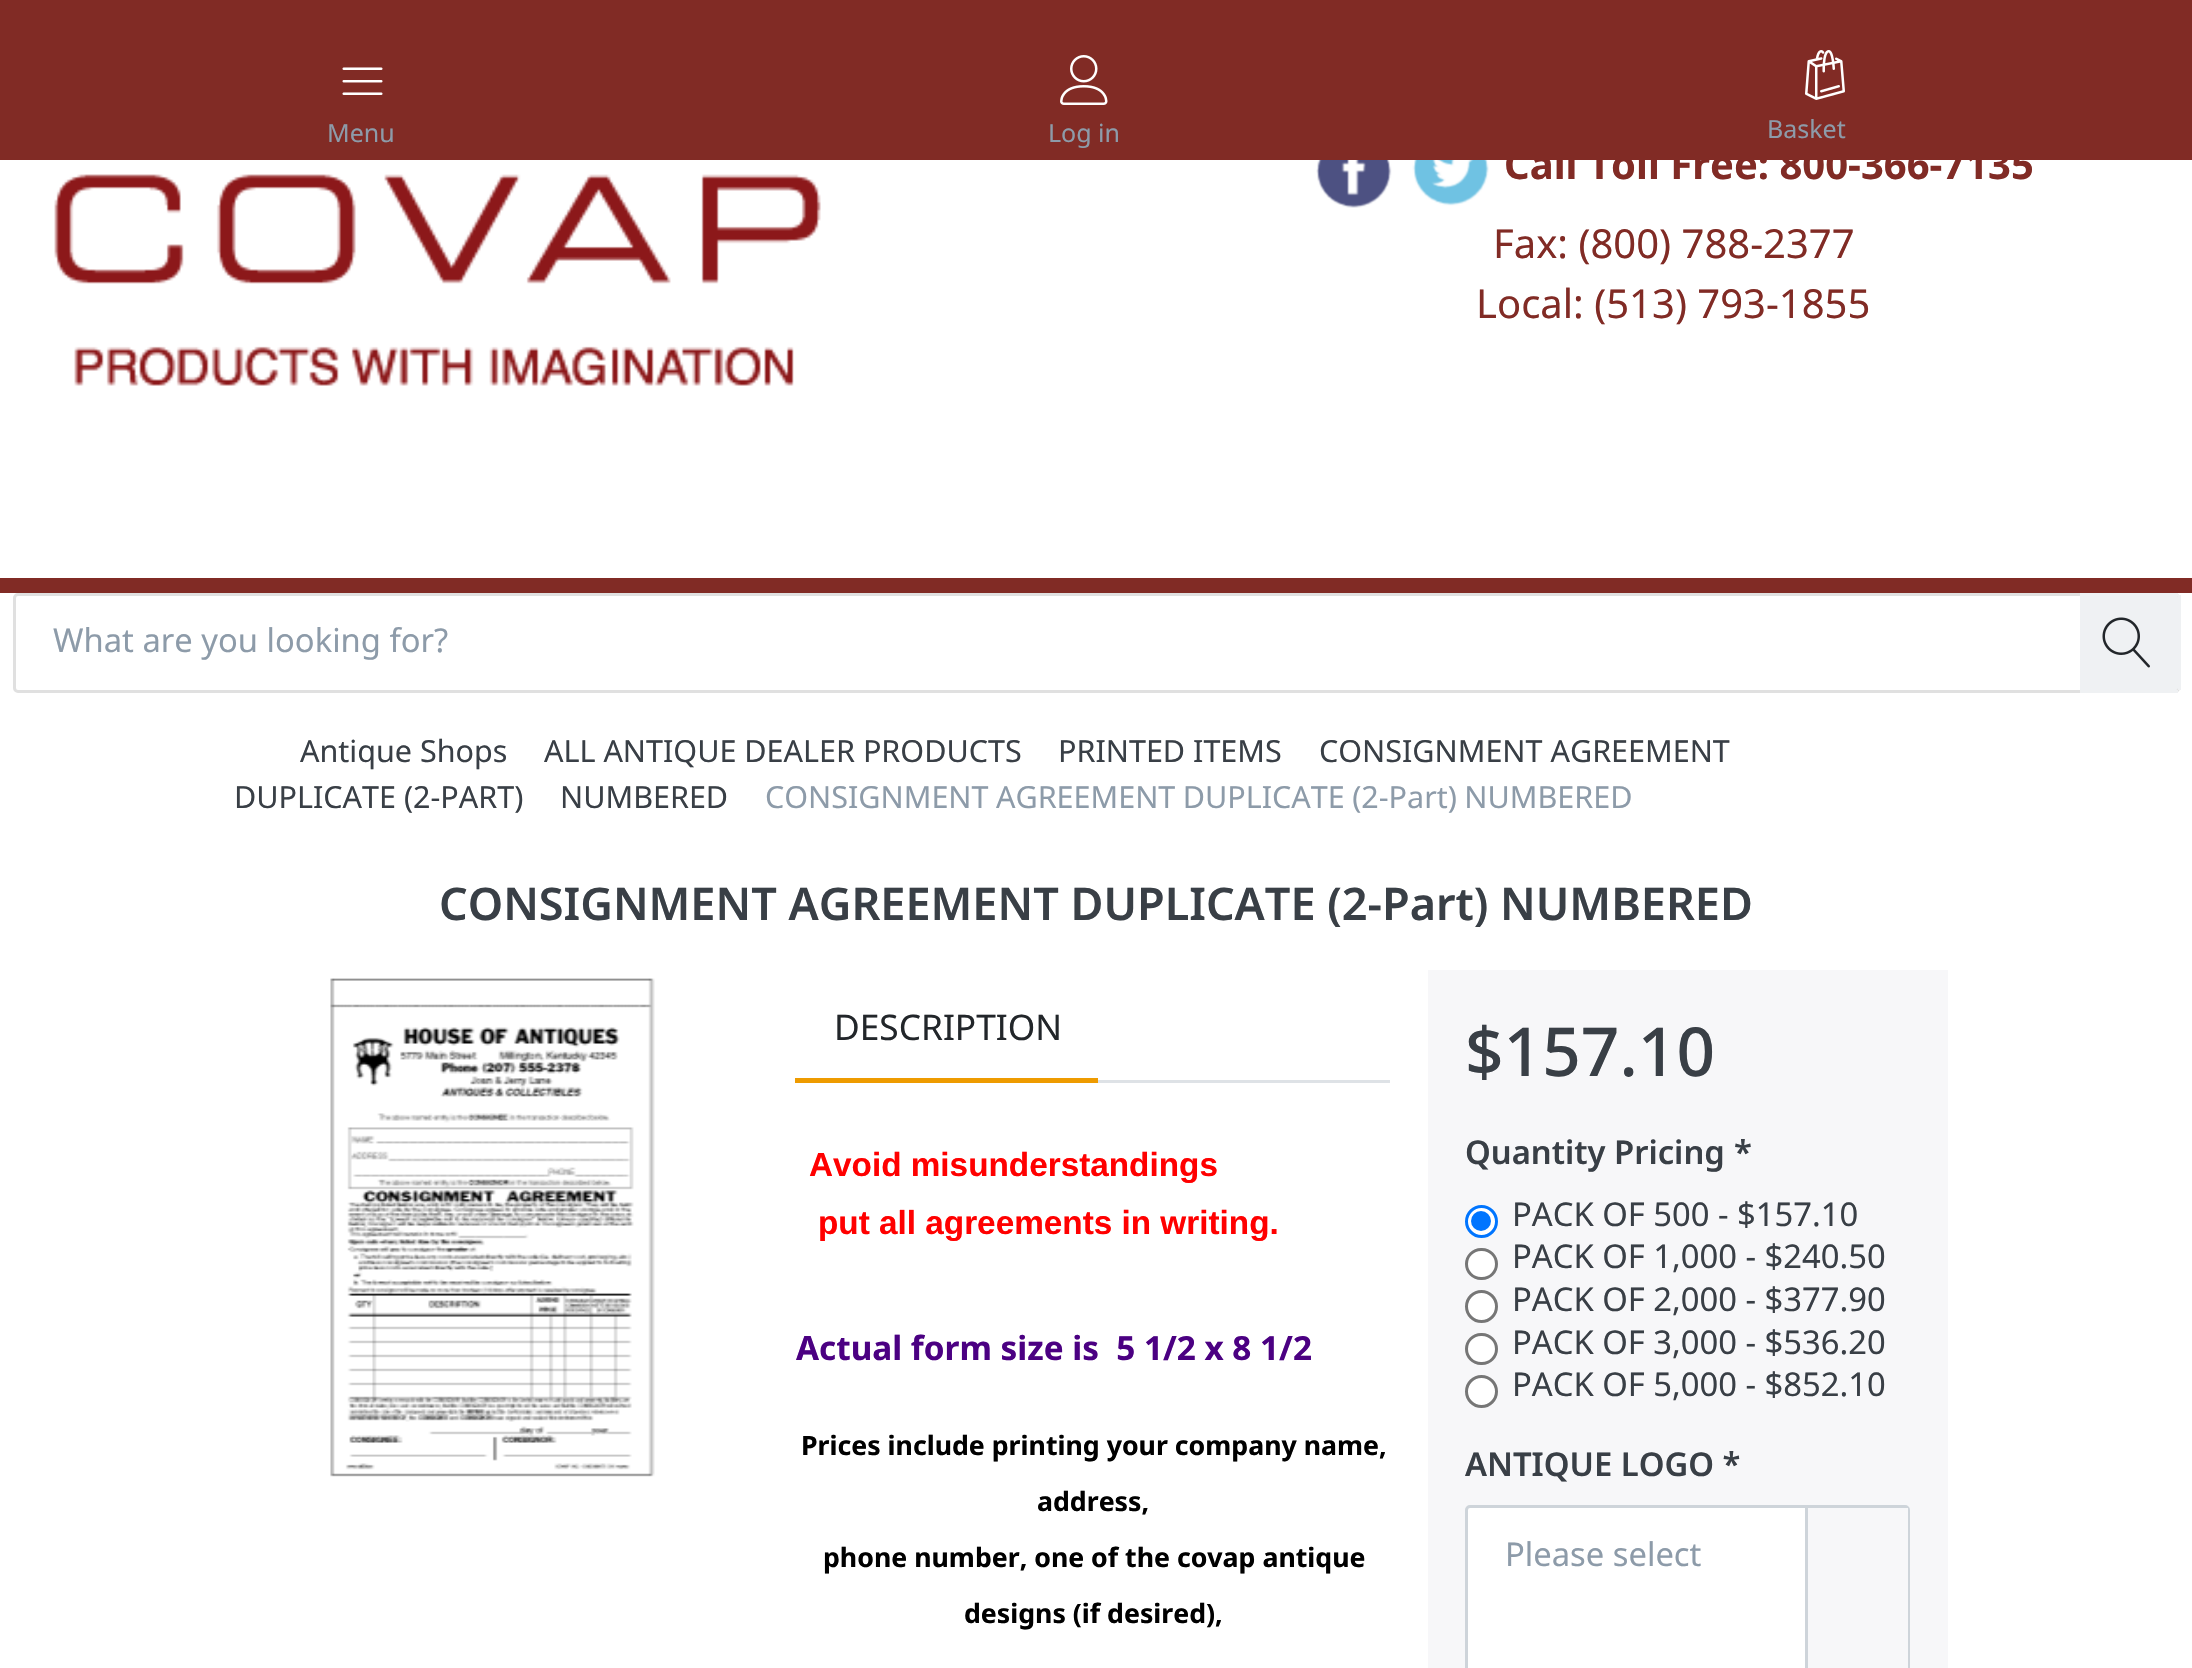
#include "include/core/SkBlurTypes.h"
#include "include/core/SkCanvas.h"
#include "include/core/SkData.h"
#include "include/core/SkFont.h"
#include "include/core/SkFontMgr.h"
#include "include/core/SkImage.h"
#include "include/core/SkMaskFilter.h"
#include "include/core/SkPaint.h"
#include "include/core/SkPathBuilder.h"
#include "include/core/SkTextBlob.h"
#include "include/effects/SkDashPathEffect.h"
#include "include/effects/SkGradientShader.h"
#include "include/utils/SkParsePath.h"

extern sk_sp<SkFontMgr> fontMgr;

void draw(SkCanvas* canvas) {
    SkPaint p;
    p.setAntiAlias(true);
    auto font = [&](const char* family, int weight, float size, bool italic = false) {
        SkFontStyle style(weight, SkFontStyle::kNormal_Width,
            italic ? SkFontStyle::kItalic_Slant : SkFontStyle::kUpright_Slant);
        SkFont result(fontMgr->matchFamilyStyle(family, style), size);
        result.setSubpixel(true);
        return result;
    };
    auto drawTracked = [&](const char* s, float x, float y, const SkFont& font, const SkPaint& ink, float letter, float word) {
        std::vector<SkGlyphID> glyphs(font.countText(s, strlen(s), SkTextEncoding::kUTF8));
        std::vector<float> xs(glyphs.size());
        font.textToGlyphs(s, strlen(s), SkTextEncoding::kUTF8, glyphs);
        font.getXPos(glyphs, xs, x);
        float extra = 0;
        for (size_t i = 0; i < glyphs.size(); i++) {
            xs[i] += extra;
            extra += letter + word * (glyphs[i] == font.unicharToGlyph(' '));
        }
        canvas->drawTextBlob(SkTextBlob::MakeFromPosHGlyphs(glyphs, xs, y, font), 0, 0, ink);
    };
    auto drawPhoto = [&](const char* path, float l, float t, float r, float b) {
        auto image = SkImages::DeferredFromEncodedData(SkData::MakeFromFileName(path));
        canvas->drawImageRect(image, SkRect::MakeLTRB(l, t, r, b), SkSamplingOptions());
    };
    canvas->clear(0xFFFFFFFF);
    p.setColor(0xFF812B25);
    canvas->drawRect(SkRect::MakeLTRB(0, 578, 2192, 593), p);
    canvas->drawRect(SkRect::MakeLTRB(0, 0, 2192, 160), p);
    drawPhoto("media/1.png", 342, 67, 383, 95);
    auto font1 = font("Noto Sans", 400, 25);
    p.setColor(0xFF8D9BA9);
    canvas->drawString("Menu", 327, 142, font1, p);
    drawPhoto("media/2.png", 1060, 55, 1108, 105);
    canvas->drawString("Log in", 1048, 142, font1, p);
    drawPhoto("media/3.png", 1805, 50, 1845, 100);
    canvas->drawString("Basket", 1767, 138, font1, p);
    drawPhoto("media/4.png", 54, 174, 821, 386);
    drawPhoto("media/5.png", 1316, 160, 1392, 208);
    drawPhoto("media/6.png", 1412, 160, 1489, 206);
    auto font2 = font("Noto Sans", 700, 40);
    p.setColor(0xFF812B25);
    canvas->drawString("Call Toll Free: 800-366-7135", 1504, 179, font2, p);
    auto font3 = font("Noto Sans", 400, 40);
    canvas->drawString("Fax: (800) 788-2377", 1493, 258, font3, p);
    canvas->drawString("Local: (513) 793-1855", 1476, 318, font3, p);
    p.setStyle(SkPaint::kStroke_Style);
    p.setStrokeWidth(3);
    p.setColor(0xFFE0E0E0);
    canvas->drawRoundRect(SkRect::MakeLTRB(14.5f, 594.5f, 2178.5f, 691.5f), 3.5f, 3.5f, p);
    auto font4 = font("Noto Sans", 400, 32.75f);
    p.setStyle(SkPaint::kFill_Style);
    p.setColor(0xFF8D9BA9);
    canvas->drawString("What are you looking for?", 53, 652, font4, p);
    p.setColor(0xFFEFF1F3);
    canvas->drawPath(SkPathBuilder().moveTo(2080, 595).lineTo(2175.5f, 595).cubicTo(2177, 595, 2178, 596, 2178, 597.5f).lineTo(2178, 687.5f).cubicTo(2178, 689, 2177, 690, 2175.5f, 690).lineTo(2080, 690).close().detach(), p);
    {
        const struct { float l, t, r, b; SkColor color; } items[] = {
            {2080, 593, 2178, 596, 0xFFEFF1F3},
            {2178, 595, 2181, 690, 0xFFEFF1F3},
            {2080, 690, 2178, 693, 0xFFEFF1F3},
        };
        for (auto [l, t, r, b, color] : items) {
            p.setColor(color);
            canvas->drawRect(SkRect::MakeLTRB(l, t, r, b), p);
        }
    }
    drawPhoto("media/7.png", 2102, 617, 2150, 668);
    auto font5 = font("Noto Sans", 400, 30.5f);
    p.setColor(0xFF393F46);
    {
        const struct { const char* s; float x, y; } items[] = {
            {"Antique Shops", 300, 762},
            {"ALL ANTIQUE DEALER PRODUCTS", 544, 762},
            {"PRINTED ITEMS", 1058, 762},
            {"CONSIGNMENT AGREEMENT", 1319, 762},
            {"DUPLICATE (2-PART)", 234, 808},
            {"NUMBERED", 560, 808},
        };
        for (auto [s, x, y] : items) {
            canvas->drawString(s, x, y, font5, p);
        }
    }
    p.setColor(0xFF8D9BA9);
    drawTracked("CONSIGNMENT AGREEMENT DUPLICATE (2-Part) NUMBERED", 765, 808, font5, p, 0, -0.5f);
    auto font6 = font("Noto Sans", 600, 45);
    p.setColor(0xFF393F46);
    canvas->drawString("CONSIGNMENT AGREEMENT DUPLICATE (2-Part) NUMBERED", 439, 920, font6, p);
    drawPhoto("media/8.png", 330, 978, 655, 1477);
    p.setColor(0xFFDEE2E6);
    canvas->drawRect(SkRect::MakeLTRB(1098, 1080, 1390, 1083), p);
    auto font7 = font("Noto Sans", 400, 35.25f);
    p.setColor(0xFF22262A);
    canvas->drawString("DESCRIPTION", 834, 1040, font7, p);
    p.setColor(0xFFEE9B00);
    canvas->drawRect(SkRect::MakeLTRB(795, 1078, 1098, 1083), p);
    auto font8 = font("Liberation Sans", 700, 33.3f);
    p.setColor(0xFFFF0000);
    canvas->drawString("Avoid misunderstandings", 809, 1176, font8, p);
    canvas->drawString("put all agreements in writing.", 818, 1234, font8, p);
    auto font9 = font("Noto Sans", 700, 33.3f);
    p.setColor(0xFF4B0082);
    canvas->drawString("Actual form size is  5 1/2 x 8 1/2", 796, 1360, font9, p);
    auto font10 = font("Noto Sans", 700, 26.7f);
    p.setColor(0xFF000000);
    {
        const struct { const char* s; float x, y; } items[] = {
            {"Prices include printing your company name,", 801, 1455},
            {"address,", 1037, 1511},
            {"phone number, one of the covap antique", 823, 1567},
            {"designs (if desired),", 964, 1623},
        };
        for (auto [s, x, y] : items) {
            canvas->drawString(s, x, y, font10, p);
        }
    }
    p.setColor(0xFFF7F7F9);
    canvas->drawRect(SkRect::MakeLTRB(1428, 970, 1948, 1668), p);
    auto font11 = font("Noto Sans", 500, 67.5f);
    p.setColor(0xFF393F46);
    canvas->drawString("$157.10", 1465, 1076, font11, p);
    auto font12 = font("Noto Sans", 600, 32.75f);
    canvas->drawString("Quantity Pricing", 1465, 1164, font12, p);
    canvas->drawString("*", 1734, 1164, font12, p);
    p.setColor(0xFFFFFFFF);
    canvas->drawCircle(1481.5f, 1221.5f, 15, p);
    p.setStyle(SkPaint::kStroke_Style);
    p.setColor(0xFF0075FF);
    canvas->drawCircle(1481.5f, 1221.5f, 15, p);
    p.setStyle(SkPaint::kFill_Style);
    canvas->drawCircle(1481, 1221, 10, p);
    p.setColor(0xFF393F46);
    canvas->drawString("PACK OF 500 - $157.10", 1512, 1226, font4, p);
    p.setColor(0xFFFFFFFF);
    canvas->drawRoundRect(SkRect::MakeLTRB(1466.5f, 1249.5f, 1496.5f, 1278.5f), 14.5f, 14.5f, p);
    p.setStyle(SkPaint::kStroke_Style);
    p.setColor(0xFF767676);
    canvas->drawRoundRect(SkRect::MakeLTRB(1466.5f, 1249.5f, 1496.5f, 1278.5f), 14.5f, 14.5f, p);
    p.setStyle(SkPaint::kFill_Style);
    p.setColor(0xFF393F46);
    canvas->drawString("PACK OF 1,000 - $240.50", 1512, 1268, font4, p);
    p.setColor(0xFFFFFFFF);
    canvas->drawCircle(1481.5f, 1306.5f, 15, p);
    p.setStyle(SkPaint::kStroke_Style);
    p.setColor(0xFF767676);
    canvas->drawCircle(1481.5f, 1306.5f, 15, p);
    p.setStyle(SkPaint::kFill_Style);
    p.setColor(0xFF393F46);
    canvas->drawString("PACK OF 2,000 - $377.90", 1512, 1311, font4, p);
    p.setColor(0xFFFFFFFF);
    canvas->drawRoundRect(SkRect::MakeLTRB(1466.5f, 1334.5f, 1496.5f, 1363.5f), 14.5f, 14.5f, p);
    p.setStyle(SkPaint::kStroke_Style);
    p.setColor(0xFF767676);
    canvas->drawRoundRect(SkRect::MakeLTRB(1466.5f, 1334.5f, 1496.5f, 1363.5f), 14.5f, 14.5f, p);
    p.setStyle(SkPaint::kFill_Style);
    p.setColor(0xFF393F46);
    canvas->drawString("PACK OF 3,000 - $536.20", 1512, 1354, font4, p);
    p.setColor(0xFFFFFFFF);
    canvas->drawCircle(1481.5f, 1391.5f, 15, p);
    p.setStyle(SkPaint::kStroke_Style);
    p.setColor(0xFF767676);
    canvas->drawCircle(1481.5f, 1391.5f, 15, p);
    p.setStyle(SkPaint::kFill_Style);
    p.setColor(0xFF393F46);
    canvas->drawString("PACK OF 5,000 - $852.10", 1512, 1396, font4, p);
    canvas->drawString("ANTIQUE LOGO *", 1465, 1476, font12, p);
    p.setColor(0xFFFFFFFF);
    canvas->drawRoundRect(SkRect::MakeLTRB(1466.5f, 1506.5f, 1908.5f, 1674.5f), 3.5f, 3.5f, p);
    p.setStyle(SkPaint::kStroke_Style);
    p.setColor(0xFFCED4DA);
    canvas->drawRoundRect(SkRect::MakeLTRB(1466.5f, 1506.5f, 1908.5f, 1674.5f), 3.5f, 3.5f, p);
    p.setStyle(SkPaint::kFill_Style);
    p.setColor(0xFF8D9BA9);
    canvas->drawString("Please select", 1505, 1566, font4, p);
    p.setColor(0xFFF7F7F9);
    canvas->drawRect(SkRect::MakeLTRB(1808, 1508, 1908, 1668), p);
    p.setColor(0xFFCED4DA);
    canvas->drawRect(SkRect::MakeLTRB(1805, 1508, 1808, 1668), p);
}
